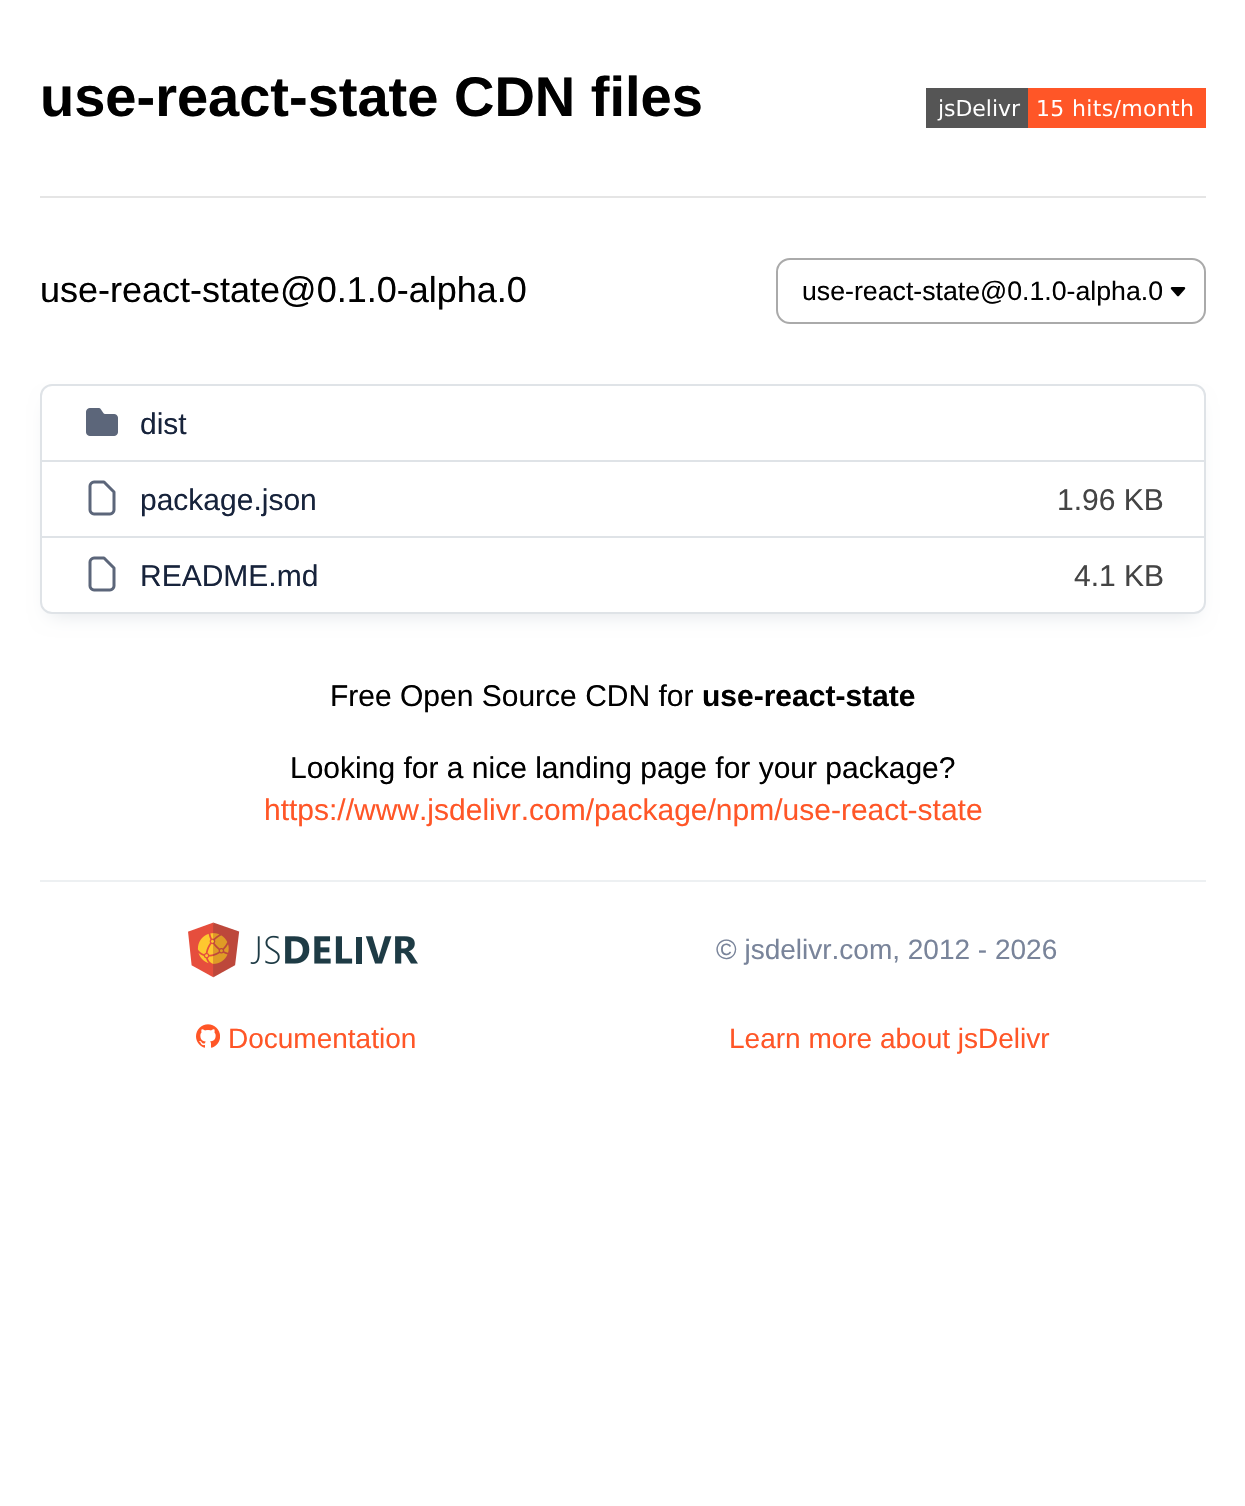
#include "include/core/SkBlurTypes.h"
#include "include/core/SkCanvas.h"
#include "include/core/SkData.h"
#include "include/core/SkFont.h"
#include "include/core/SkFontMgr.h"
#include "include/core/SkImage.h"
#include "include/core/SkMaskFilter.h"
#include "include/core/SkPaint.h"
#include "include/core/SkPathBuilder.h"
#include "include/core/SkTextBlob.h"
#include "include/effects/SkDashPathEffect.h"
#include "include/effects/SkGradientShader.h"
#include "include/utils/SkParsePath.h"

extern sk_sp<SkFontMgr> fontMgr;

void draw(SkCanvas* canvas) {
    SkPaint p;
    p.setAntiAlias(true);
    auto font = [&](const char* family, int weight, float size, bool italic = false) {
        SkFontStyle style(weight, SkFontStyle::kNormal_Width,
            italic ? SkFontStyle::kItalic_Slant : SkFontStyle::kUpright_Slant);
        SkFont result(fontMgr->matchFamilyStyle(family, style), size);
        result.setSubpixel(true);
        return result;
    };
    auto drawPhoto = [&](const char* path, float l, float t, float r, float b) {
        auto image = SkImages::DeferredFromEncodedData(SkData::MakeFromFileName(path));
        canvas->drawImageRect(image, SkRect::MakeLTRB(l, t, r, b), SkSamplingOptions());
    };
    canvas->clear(0xFFFFFFFF);
    auto font1 = font("Liberation Sans", 700, 56);
    p.setColor(0xFF000000);
    canvas->drawString("use-react-state CDN files", 40, 116, font1, p);
    drawPhoto("media/1.png", 926, 88, 1206, 128);
    p.setColor(0xFFE5E5E5);
    canvas->drawRect(SkRect::MakeLTRB(40, 196, 1206, 198), p);
    auto font2 = font("Liberation Sans", 400, 36);
    p.setColor(0xFF000000);
    canvas->drawString("use-react-state@0.1.0-alpha.0", 40, 302, font2, p);
    drawPhoto("media/2.png", 1170, 287, 1186, 297);
    p.setStyle(SkPaint::kStroke_Style);
    p.setStrokeWidth(2);
    p.setColor(0xFFAAAAAA);
    canvas->drawRoundRect(SkRect::MakeLTRB(777, 259, 1205, 323), 13, 13, p);
    auto font3 = font("Liberation Sans", 400, 26.7f);
    p.setStyle(SkPaint::kFill_Style);
    p.setColor(0xFF000000);
    canvas->drawString("use-react-state@0.1.0-alpha.0", 802, 300, font3, p);
    canvas->save();
    canvas->clipPath(SkPathBuilder(SkPathFillType::kEvenOdd).moveTo(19, 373).lineTo(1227, 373).lineTo(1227, 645).lineTo(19, 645).close().moveTo(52, 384).lineTo(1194, 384).cubicTo(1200.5f, 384, 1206, 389.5f, 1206, 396).lineTo(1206, 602).cubicTo(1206, 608.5f, 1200.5f, 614, 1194, 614).lineTo(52, 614).cubicTo(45.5f, 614, 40, 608.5f, 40, 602).lineTo(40, 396).cubicTo(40, 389.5f, 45.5f, 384, 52, 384).close().detach(), true);
    p.setColor(0xFFDFE3E7);
    p.setMaskFilter(SkMaskFilter::MakeBlur(kNormal_SkBlurStyle, 10));
    canvas->drawRoundRect(SkRect::MakeLTRB(50, 404, 1196, 614), 2, 2, p);
    p.setMaskFilter(nullptr);
    canvas->restore();
    p.setStyle(SkPaint::kStroke_Style);
    canvas->drawRoundRect(SkRect::MakeLTRB(41, 385, 1205, 613), 11, 11, p);
    p.setStyle(SkPaint::kFill_Style);
    canvas->drawRect(SkRect::MakeLTRB(42, 460, 1204, 462), p);
    drawPhoto("media/3.png", 86, 408, 118, 436);
    auto font4 = font("Liberation Sans", 400, 30);
    p.setColor(0xFF17233B);
    canvas->drawString("dist", 140, 434, font4, p);
    p.setColor(0xFFDFE3E7);
    canvas->drawRect(SkRect::MakeLTRB(42, 536, 1204, 538), p);
    p.setStyle(SkPaint::kStroke_Style);
    p.setStrokeWidth(3);
    p.setStrokeCap(SkPaint::kRound_Cap);
    p.setStrokeJoin(SkPaint::kRound_Join);
    p.setColor(0xFF5C667A);
    canvas->drawPath(SkPathBuilder().moveTo(90, 486).cubicTo(90, 484, 92, 482, 94, 482).lineTo(104, 482).lineTo(114, 492).lineTo(114, 510).cubicTo(114, 512, 112, 514, 110, 514).lineTo(94, 514).cubicTo(92, 514, 90, 512, 90, 510).close().detach(), p);
    p.setStyle(SkPaint::kFill_Style);
    p.setColor(0xFF17233B);
    canvas->drawString("package.json", 140, 510, font4, p);
    p.setColor(0xFF444444);
    canvas->drawString("1.96 KB", 1057, 510, font4, p);
    p.setStyle(SkPaint::kStroke_Style);
    p.setColor(0xFF5C667A);
    canvas->drawPath(SkPathBuilder().moveTo(90, 562).cubicTo(90, 560, 92, 558, 94, 558).lineTo(104, 558).lineTo(114, 568).lineTo(114, 586).cubicTo(114, 588, 112, 590, 110, 590).lineTo(94, 590).cubicTo(92, 590, 90, 588, 90, 586).close().detach(), p);
    p.setStyle(SkPaint::kFill_Style);
    p.setColor(0xFF17233B);
    canvas->drawString("README.md", 140, 586, font4, p);
    p.setColor(0xFF444444);
    canvas->drawString("4.1 KB", 1074, 586, font4, p);
    p.setColor(0xFF000000);
    canvas->drawString("Free Open Source CDN for", 330, 706, font4, p);
    auto font5 = font("Liberation Sans", 700, 30);
    canvas->drawString("use-react-state", 702, 706, font5, p);
    canvas->drawString("Looking for a nice landing page for your package?", 290, 778, font4, p);
    p.setColor(0xFFFF5627);
    canvas->drawString("https://www.jsdelivr.com/package/npm/use-react-state", 264, 820, font4, p);
    p.setColor(0xFFEDF0F2);
    canvas->drawRect(SkRect::MakeLTRB(40, 880, 1206, 882), p);
    drawPhoto("media/4.png", 188, 922, 418, 978);
    auto font6 = font("Liberation Sans", 400, 28);
    p.setColor(0xFF79849A);
    canvas->drawString("© jsdelivr.com, 2012 - 2026", 716, 959, font6, p);
    drawPhoto("media/5.png", 196, 1024, 220, 1048);
    p.setColor(0xFFFF5627);
    canvas->drawString("Documentation", 228, 1048, font6, p);
    canvas->drawString("Learn more about jsDelivr", 729, 1048, font6, p);
}
